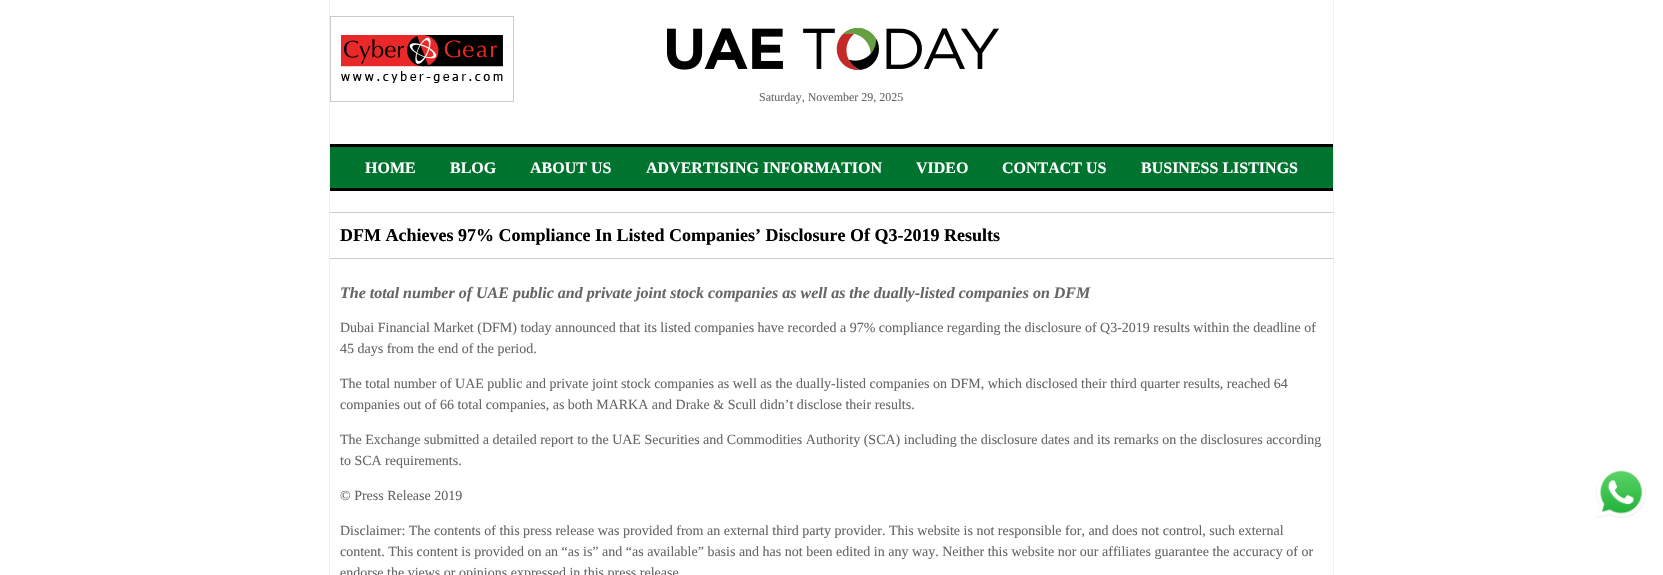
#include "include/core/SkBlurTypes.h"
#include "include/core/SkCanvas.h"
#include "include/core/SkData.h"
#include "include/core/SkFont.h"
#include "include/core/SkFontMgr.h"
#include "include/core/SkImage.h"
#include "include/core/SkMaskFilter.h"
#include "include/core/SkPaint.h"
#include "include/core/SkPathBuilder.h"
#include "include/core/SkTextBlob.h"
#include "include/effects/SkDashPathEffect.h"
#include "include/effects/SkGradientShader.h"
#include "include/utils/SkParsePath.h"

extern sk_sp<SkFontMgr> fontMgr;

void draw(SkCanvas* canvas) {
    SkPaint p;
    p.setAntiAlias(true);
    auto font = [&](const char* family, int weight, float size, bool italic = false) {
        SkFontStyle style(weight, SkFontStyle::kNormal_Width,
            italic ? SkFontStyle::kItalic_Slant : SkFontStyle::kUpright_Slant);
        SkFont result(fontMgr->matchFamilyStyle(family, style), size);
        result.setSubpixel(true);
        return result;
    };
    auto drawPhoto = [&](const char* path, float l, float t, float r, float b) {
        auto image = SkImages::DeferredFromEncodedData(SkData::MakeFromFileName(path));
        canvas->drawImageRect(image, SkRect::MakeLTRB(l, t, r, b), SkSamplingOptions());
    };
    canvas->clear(0xFFFFFFFF);
    p.setColor(0xFFEFEFEF);
    canvas->drawRect(SkRect::MakeLTRB(1333, 0, 1334, 575), p);
    canvas->drawRect(SkRect::MakeLTRB(329, 0, 330, 575), p);
    drawPhoto("media/1.png", 330, 16, 514, 102);
    drawPhoto("media/2.png", 667, 28, 999, 70);
    auto font1 = font("Liberation Serif", 400, 12);
    p.setColor(0xFF666666);
    canvas->drawString("Saturday, November 29, 2025", 759, 101, font1, p);
    {
        const struct { float l, t, r, b; SkColor color; } items[] = {
            {330, 144, 1333, 147, 0xFF000000},
            {330, 147, 1333, 188, 0xFF00732F},
            {330, 188, 1333, 191, 0xFF000000},
        };
        for (auto [l, t, r, b, color] : items) {
            p.setColor(color);
            canvas->drawRect(SkRect::MakeLTRB(l, t, r, b), p);
        }
    }
    auto font2 = font("Liberation Serif", 700, 16);
    p.setColor(0xFFFFFFFF);
    {
        const struct { const char* s; float x, y; } items[] = {
            {"HOME", 365, 173},
            {"BLOG", 450, 173},
            {"ABOUT US", 530, 173},
            {"ADVERTISING INFORMATION", 646, 173},
            {"VIDEO", 916, 173},
            {"CONTACT US", 1002, 173},
            {"BUSINESS LISTINGS", 1141, 173},
        };
        for (auto [s, x, y] : items) {
            canvas->drawString(s, x, y, font2, p);
        }
    }
    p.setColor(0xFFCCCCCC);
    canvas->drawRect(SkRect::MakeLTRB(330, 212, 1333, 213), p);
    auto font3 = font("Liberation Serif", 700, 18);
    p.setColor(0xFF000000);
    canvas->drawString("DFM Achieves 97% Compliance In Listed Companies’ Disclosure Of Q3-2019 Results", 340, 241, font3, p);
    p.setColor(0xFFCCCCCC);
    canvas->drawRect(SkRect::MakeLTRB(330, 258, 1333, 259), p);
    auto font4 = font("Liberation Serif", 700, 16, true);
    p.setColor(0xFF666666);
    canvas->drawString("The total number of UAE public and private joint stock companies as well as the dually-listed companies on DFM", 340, 298, font4, p);
    auto font5 = font("Liberation Serif", 400, 14);
    {
        const struct { const char* s; float x, y; } items[] = {
            {"Dubai Financial Market (DFM) today announced that its listed companies have recorded a 97% compliance regarding the disclosure of Q3-2019 results within the deadline of", 340, 332},
            {"45 days from the end of the period.", 340, 353},
            {"The total number of UAE public and private joint stock companies as well as the dually-listed companies on DFM, which disclosed their third quarter results, reached 64", 340, 388},
            {"companies out of 66 total companies, as both MARKA and Drake & Scull didn’t disclose their results.", 340, 409},
            {"The Exchange submitted a detailed report to the UAE Securities and Commodities Authority (SCA) including the disclosure dates and its remarks on the disclosures according", 340, 444},
            {"to SCA requirements.", 340, 465},
            {"© Press Release 2019", 340, 500},
            {"Disclaimer: The contents of this press release was provided from an external third party provider. This website is not responsible for, and does not control, such external", 340, 535},
            {"content. This content is provided on an “as is” and “as available” basis and has not been edited in any way. Neither this website nor our affiliates guarantee the accuracy of or", 340, 556},
            {"endorse the views or opinions expressed in this press release", 340, 577},
        };
        for (auto [s, x, y] : items) {
            canvas->drawString(s, x, y, font5, p);
        }
    }
    drawPhoto("media/3.png", 1596, 470, 1646, 518);
}
